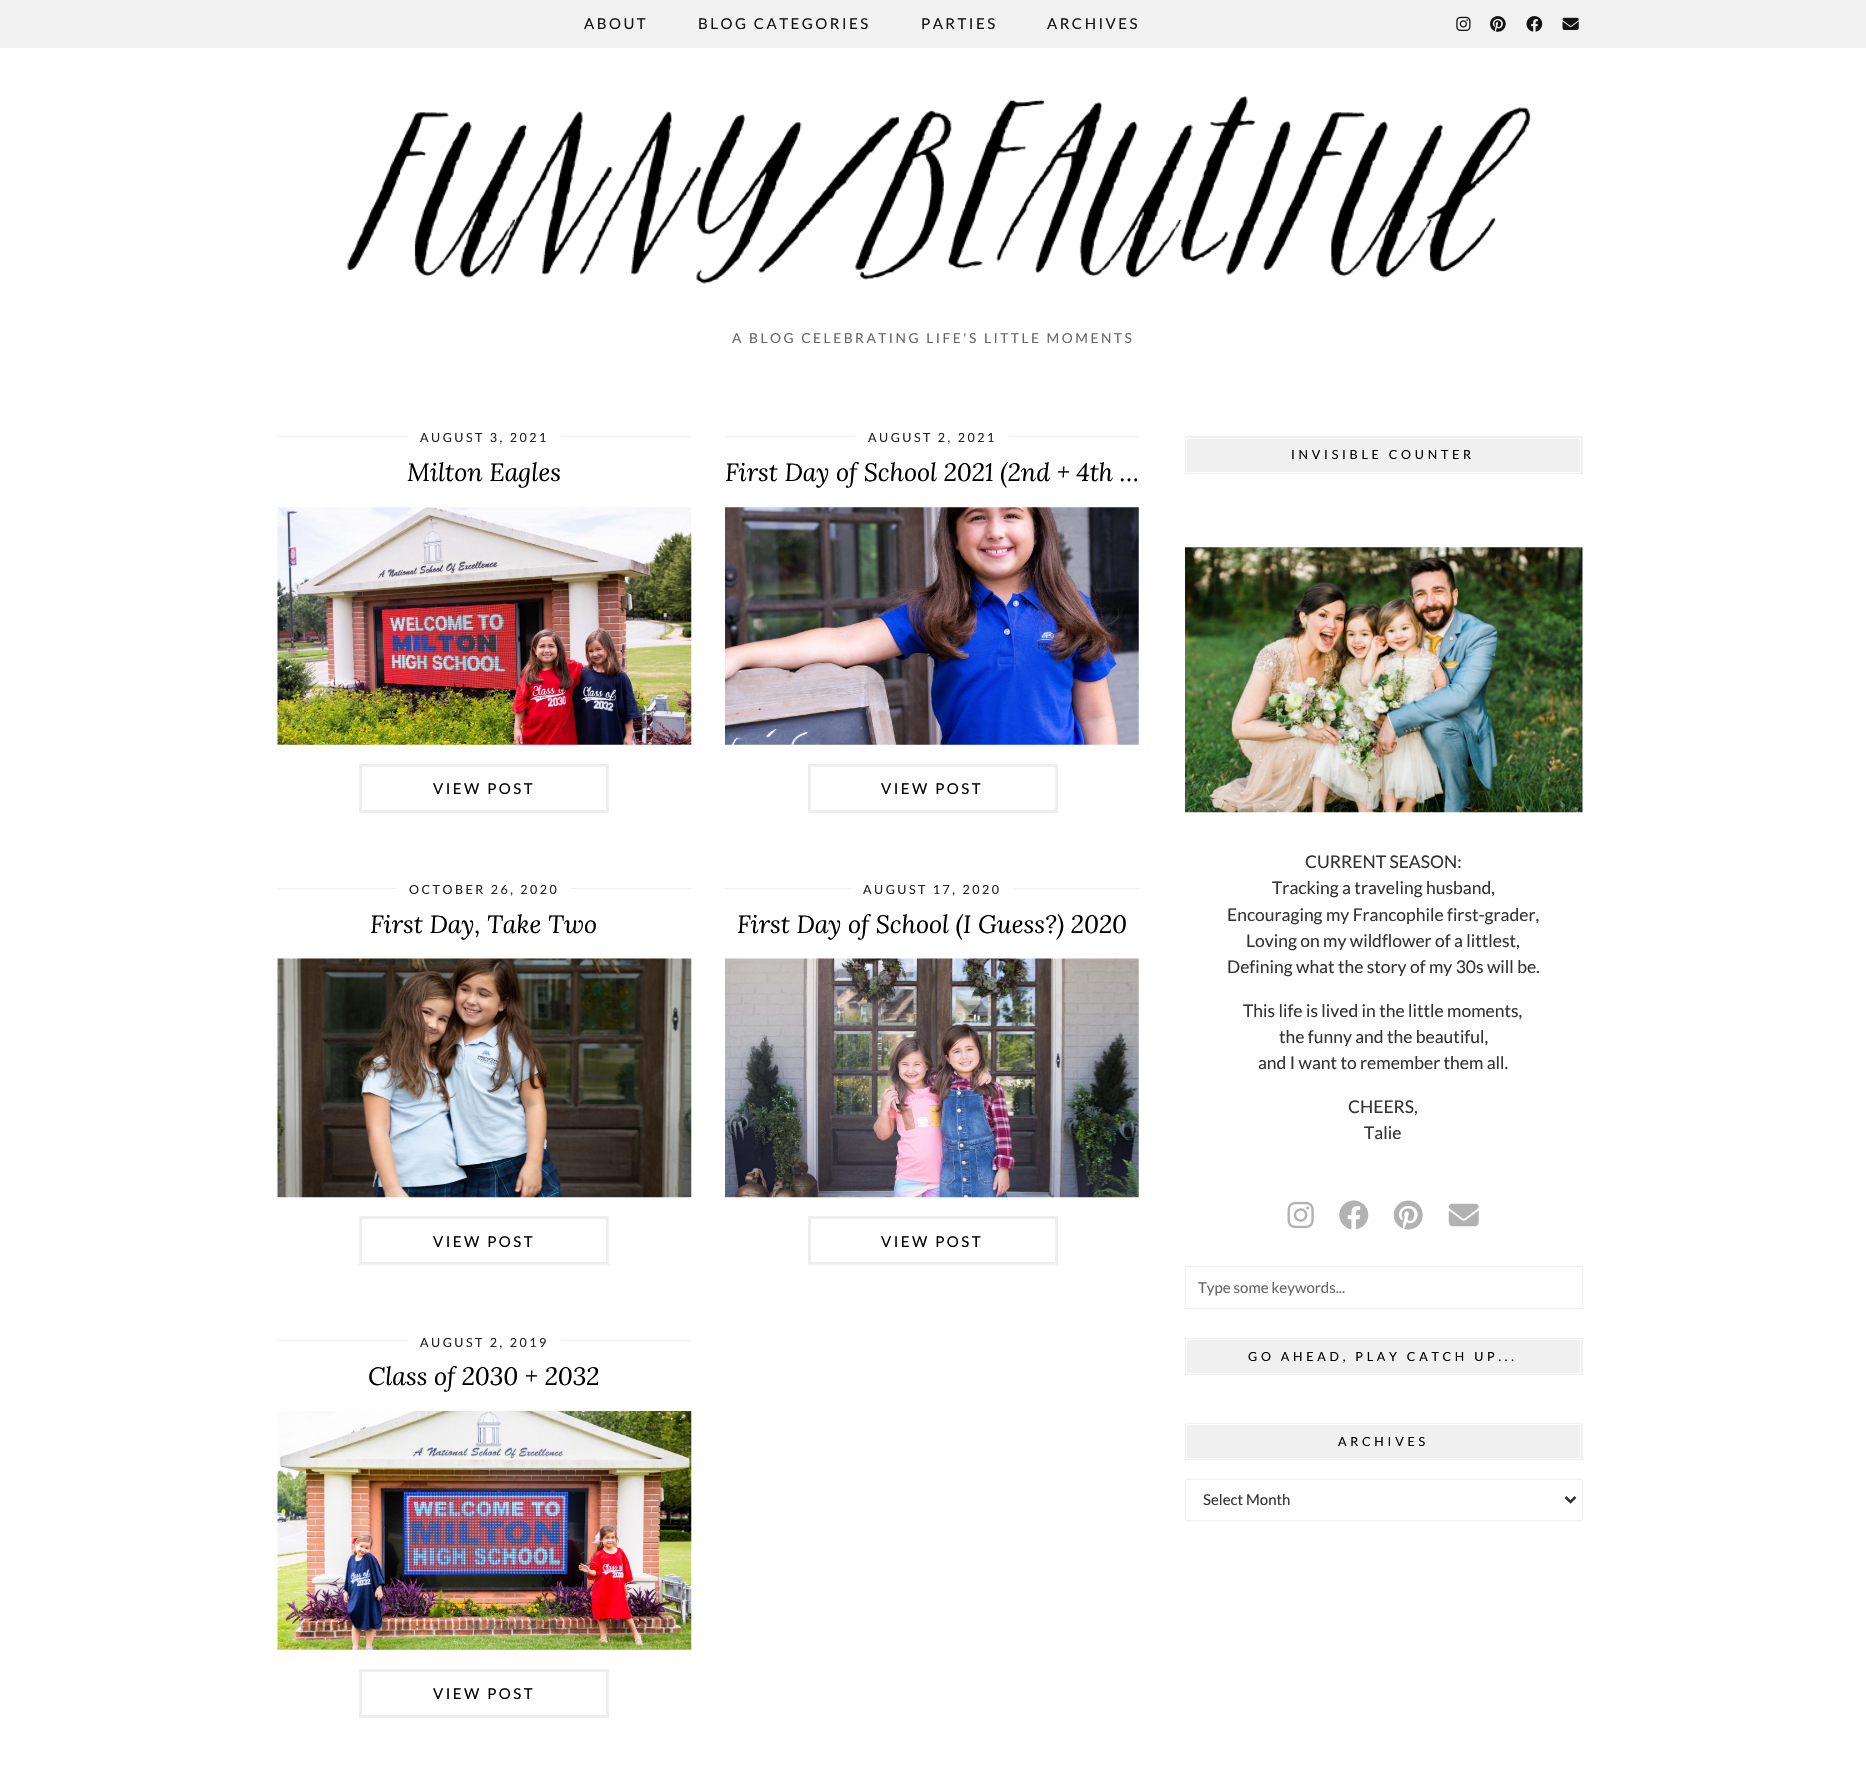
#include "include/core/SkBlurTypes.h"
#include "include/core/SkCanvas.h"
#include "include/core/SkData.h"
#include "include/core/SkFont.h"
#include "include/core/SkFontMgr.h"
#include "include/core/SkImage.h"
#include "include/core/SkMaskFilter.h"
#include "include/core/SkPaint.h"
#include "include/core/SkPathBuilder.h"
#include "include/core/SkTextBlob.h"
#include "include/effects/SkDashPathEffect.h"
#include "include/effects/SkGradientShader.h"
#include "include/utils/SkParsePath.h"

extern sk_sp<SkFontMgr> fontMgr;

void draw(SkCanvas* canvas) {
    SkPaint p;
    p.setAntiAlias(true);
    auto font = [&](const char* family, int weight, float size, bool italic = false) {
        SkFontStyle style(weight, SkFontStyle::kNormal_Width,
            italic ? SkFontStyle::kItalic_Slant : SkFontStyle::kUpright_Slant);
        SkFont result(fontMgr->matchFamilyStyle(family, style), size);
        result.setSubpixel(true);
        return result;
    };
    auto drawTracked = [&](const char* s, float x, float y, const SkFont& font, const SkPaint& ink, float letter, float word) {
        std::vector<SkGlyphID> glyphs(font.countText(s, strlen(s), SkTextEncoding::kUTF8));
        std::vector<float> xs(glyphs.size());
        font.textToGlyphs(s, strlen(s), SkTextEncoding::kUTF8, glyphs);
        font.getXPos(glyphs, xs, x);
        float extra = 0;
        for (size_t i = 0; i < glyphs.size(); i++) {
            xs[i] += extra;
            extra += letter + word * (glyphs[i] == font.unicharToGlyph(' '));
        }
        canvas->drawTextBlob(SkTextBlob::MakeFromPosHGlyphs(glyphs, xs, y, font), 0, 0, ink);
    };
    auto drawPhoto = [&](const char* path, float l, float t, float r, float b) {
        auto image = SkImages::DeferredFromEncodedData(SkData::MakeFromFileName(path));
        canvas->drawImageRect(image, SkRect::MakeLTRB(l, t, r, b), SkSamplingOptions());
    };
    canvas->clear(0xFFFFFFFF);
    p.setColor(0xFFF1F1F1);
    canvas->drawRect(SkRect::MakeLTRB(0, 0, 1866, 48), p);
    auto font1 = font("Lato", 400, 15);
    p.setColor(0xFF141414);
    {
        const struct { const char* s; float x, y; } items[] = {
            {"ABOUT", 584, 29},
            {"BLOG CATEGORIES", 698, 29},
            {"PARTIES", 921, 29},
            {"ARCHIVES", 1047, 29},
        };
        for (auto [s, x, y] : items) {
            drawTracked(s, x, y, font1, p, 2.5f, 0);
        }
    }
    drawPhoto("media/1.png", 1456, 16, 1471, 31);
    drawPhoto("media/2.png", 1490, 16, 1506, 32);
    drawPhoto("media/3.png", 1526, 16, 1543, 32);
    drawPhoto("media/4.png", 1562, 17, 1579, 30);
    drawPhoto("media/5.png", 347, 96, 1531, 284);
    auto font2 = font("Lato", 400, 13.75f);
    p.setColor(0xFF666666);
    drawTracked("A BLOG CELEBRATING LIFE'S LITTLE MOMENTS", 732, 343, font2, p, 2.5f, 0);
    p.setColor(0xFFEEEEEE);
    canvas->drawRect(SkRect::MakeLTRB(278, 436, 691, 437), p);
    p.setColor(0xFFFFFFFF);
    canvas->drawRect(SkRect::MakeLTRB(408, 436, 561, 437), p);
    auto font3 = font("Lato", 400, 12.5f);
    p.setColor(0xFF222222);
    drawTracked("AUGUST 3, 2021", 420, 442, font3, p, 2.5f, 0);
    auto font4 = font("Lora", 400, 25, true);
    p.setColor(0xFF000000);
    canvas->drawString("Milton Eagles", 407, 481, font4, p);
    drawPhoto("media/6.png", 277, 507, 692, 745);
    p.setStyle(SkPaint::kStroke_Style);
    p.setStrokeWidth(3);
    p.setColor(0xFFEEEEEE);
    canvas->drawRect(SkRect::MakeLTRB(360.5f, 765.5f, 607.5f, 811.5f), p);
    p.setStyle(SkPaint::kFill_Style);
    p.setColor(0xFF000000);
    drawTracked("VIEW POST", 433, 794, font1, p, 2.5f, 0);
    p.setColor(0xFFEEEEEE);
    canvas->drawRect(SkRect::MakeLTRB(725, 436, 1139, 437), p);
    p.setColor(0xFFFFFFFF);
    canvas->drawRect(SkRect::MakeLTRB(855, 436, 1009, 437), p);
    p.setColor(0xFF222222);
    drawTracked("AUGUST 2, 2021", 868, 442, font3, p, 2.5f, 0);
    p.setColor(0xFF000000);
    canvas->drawString("First Day of School 2021 (2nd + 4th …", 725, 481, font4, p);
    drawPhoto("media/7.png", 725, 507, 1139, 745);
    p.setStyle(SkPaint::kStroke_Style);
    p.setColor(0xFFEEEEEE);
    canvas->drawRect(SkRect::MakeLTRB(809.5f, 765.5f, 1056.5f, 811.5f), p);
    p.setStyle(SkPaint::kFill_Style);
    p.setColor(0xFF000000);
    drawTracked("VIEW POST", 881, 794, font1, p, 2.5f, 0);
    p.setColor(0xFFEEEEEE);
    canvas->drawRect(SkRect::MakeLTRB(278, 888, 691, 889), p);
    p.setColor(0xFFFFFFFF);
    canvas->drawRect(SkRect::MakeLTRB(396, 888, 571, 889), p);
    p.setColor(0xFF222222);
    drawTracked("OCTOBER 26, 2020", 409, 894, font3, p, 2.5f, 0);
    p.setColor(0xFF000000);
    canvas->drawString("First Day, Take Two", 370, 933, font4, p);
    drawPhoto("media/8.png", 277, 958, 692, 1198);
    p.setStyle(SkPaint::kStroke_Style);
    p.setColor(0xFFEEEEEE);
    canvas->drawRect(SkRect::MakeLTRB(360.5f, 1217.5f, 607.5f, 1263.5f), p);
    p.setStyle(SkPaint::kFill_Style);
    p.setColor(0xFF000000);
    drawTracked("VIEW POST", 433, 1247, font1, p, 2.5f, 0);
    p.setColor(0xFFEEEEEE);
    canvas->drawRect(SkRect::MakeLTRB(725, 888, 1139, 889), p);
    p.setColor(0xFFFFFFFF);
    canvas->drawRect(SkRect::MakeLTRB(851, 888, 1014, 889), p);
    p.setColor(0xFF222222);
    drawTracked("AUGUST 17, 2020", 863, 894, font3, p, 2.5f, 0);
    p.setColor(0xFF000000);
    canvas->drawString("First Day of School (I Guess?) 2020", 737, 933, font4, p);
    drawPhoto("media/9.png", 725, 958, 1139, 1198);
    p.setStyle(SkPaint::kStroke_Style);
    p.setColor(0xFFEEEEEE);
    canvas->drawRect(SkRect::MakeLTRB(809.5f, 1217.5f, 1056.5f, 1263.5f), p);
    p.setStyle(SkPaint::kFill_Style);
    p.setColor(0xFF000000);
    drawTracked("VIEW POST", 881, 1247, font1, p, 2.5f, 0);
    p.setColor(0xFFEEEEEE);
    canvas->drawRect(SkRect::MakeLTRB(278, 1340, 691, 1341), p);
    p.setColor(0xFFFFFFFF);
    canvas->drawRect(SkRect::MakeLTRB(408, 1340, 561, 1341), p);
    p.setColor(0xFF222222);
    drawTracked("AUGUST 2, 2019", 420, 1347, font3, p, 2.5f, 0);
    p.setColor(0xFF000000);
    canvas->drawString("Class of 2030 + 2032", 368, 1385, font4, p);
    drawPhoto("media/10.png", 277, 1411, 692, 1650);
    p.setStyle(SkPaint::kStroke_Style);
    p.setColor(0xFFEEEEEE);
    canvas->drawRect(SkRect::MakeLTRB(360.5f, 1670.5f, 607.5f, 1716.5f), p);
    p.setStyle(SkPaint::kFill_Style);
    p.setColor(0xFF000000);
    drawTracked("VIEW POST", 433, 1699, font1, p, 2.5f, 0);
    p.setColor(0xFFF0F0F0);
    canvas->drawRect(SkRect::MakeLTRB(1185, 436, 1583, 474), p);
    p.setStyle(SkPaint::kStroke_Style);
    p.setStrokeWidth(1);
    p.setColor(0xFFFFFFFF);
    canvas->drawRect(SkRect::MakeLTRB(1186.5f, 438.5f, 1580.5f, 472.5f), p);
    p.setStyle(SkPaint::kFill_Style);
    p.setColor(0xFF000000);
    drawTracked("INVISIBLE COUNTER", 1291, 459, font3, p, 3.75f, 0);
    drawPhoto("media/11.png", 1185, 547, 1583, 813);
    auto font5 = font("Lato", 400, 17.5f);
    p.setColor(0xFF333333);
    {
        const struct { const char* s; float x, y; } items[] = {
            {"CURRENT SEASON:", 1305, 868},
            {"Tracking a traveling husband,", 1272, 894},
            {"Encouraging my Francophile first-grader,", 1227, 921},
            {"Loving on my wildflower of a littlest,", 1246, 947},
            {"Defining what the story of my 30s will be.", 1227, 973},
            {"This life is lived in the little moments,", 1243, 1017},
            {"the funny and the beautiful,", 1279, 1043},
            {"and I want to remember them all.", 1258, 1069},
            {"CHEERS,", 1348, 1113},
            {"Talie", 1364, 1139},
        };
        for (auto [s, x, y] : items) {
            canvas->drawString(s, x, y, font5, p);
        }
    }
    drawPhoto("media/12.png", 1287, 1201, 1314, 1229);
    drawPhoto("media/13.png", 1339, 1200, 1369, 1230);
    drawPhoto("media/14.png", 1393, 1200, 1423, 1230);
    drawPhoto("media/15.png", 1448, 1203, 1479, 1227);
    p.setStyle(SkPaint::kStroke_Style);
    p.setColor(0xFFEEEEEE);
    canvas->drawRect(SkRect::MakeLTRB(1185.5f, 1266.5f, 1582.5f, 1308.5f), p);
    p.setStyle(SkPaint::kFill_Style);
    p.setColor(0xFF666666);
    canvas->drawString("Type some keywords...", 1198, 1293, font1, p);
    p.setColor(0xFFF0F0F0);
    canvas->drawRect(SkRect::MakeLTRB(1185, 1338, 1583, 1375), p);
    p.setStyle(SkPaint::kStroke_Style);
    p.setColor(0xFFFFFFFF);
    canvas->drawRect(SkRect::MakeLTRB(1186.5f, 1339.5f, 1580.5f, 1373.5f), p);
    p.setStyle(SkPaint::kFill_Style);
    p.setColor(0xFF000000);
    drawTracked("GO AHEAD, PLAY CATCH UP...", 1248, 1361, font3, p, 3.75f, 0);
    p.setColor(0xFFF0F0F0);
    canvas->drawRect(SkRect::MakeLTRB(1185, 1423, 1583, 1460), p);
    p.setStyle(SkPaint::kStroke_Style);
    p.setColor(0xFFFFFFFF);
    canvas->drawRect(SkRect::MakeLTRB(1186.5f, 1424.5f, 1580.5f, 1458.5f), p);
    p.setStyle(SkPaint::kFill_Style);
    p.setColor(0xFF000000);
    drawTracked("ARCHIVES", 1338, 1446, font3, p, 3.75f, 0);
    p.setStyle(SkPaint::kStroke_Style);
    p.setColor(0xFFEEEEEE);
    canvas->drawRect(SkRect::MakeLTRB(1185.5f, 1479.5f, 1582.5f, 1520.5f), p);
    p.setStrokeWidth(2.5f);
    p.setColor(0xFF333333);
    canvas->drawPath(SkPathBuilder().moveTo(1565.5f, 1497).lineTo(1570.5f, 1502).lineTo(1575.5f, 1497).detach(), p);
    p.setStyle(SkPaint::kFill_Style);
    canvas->drawString("Select Month", 1203, 1505, font1, p);
}
